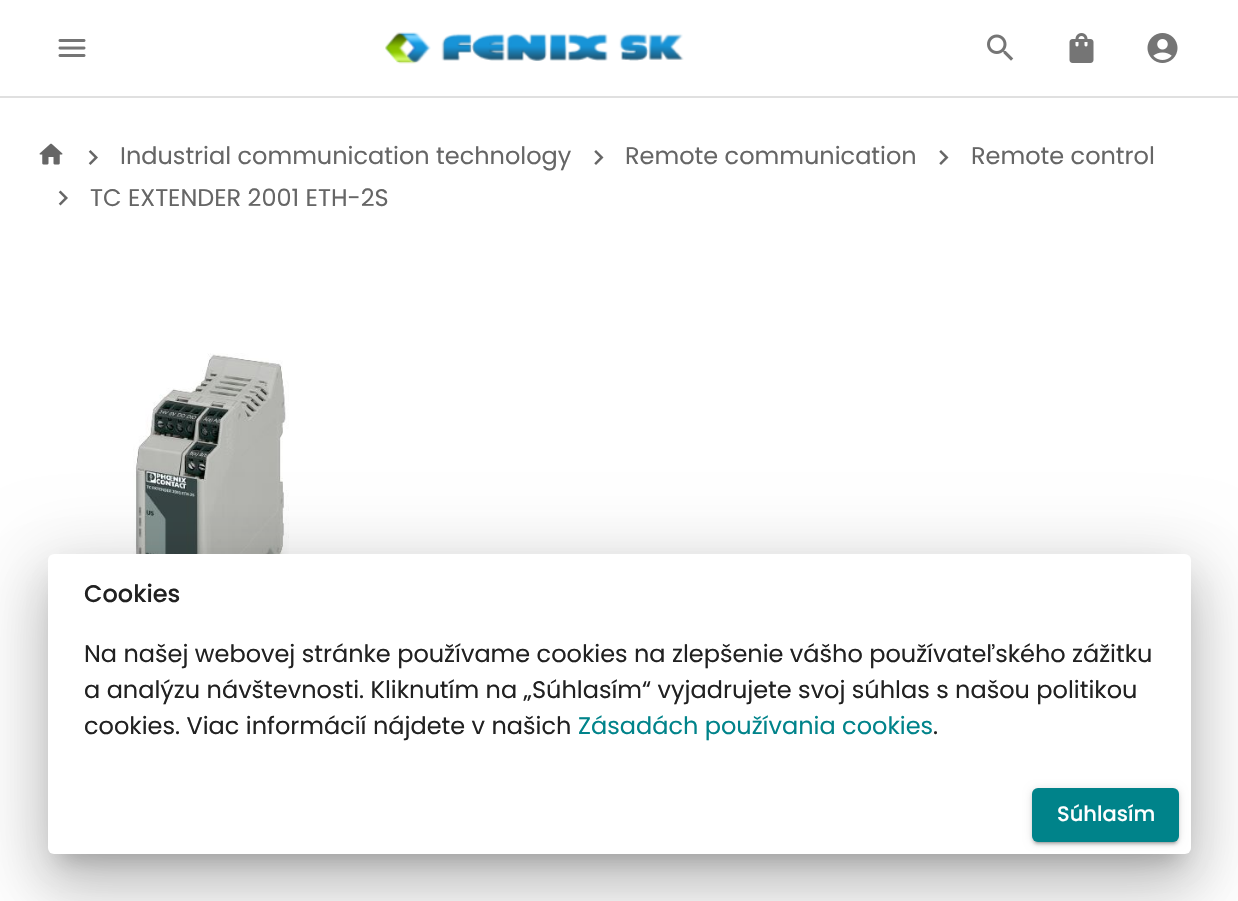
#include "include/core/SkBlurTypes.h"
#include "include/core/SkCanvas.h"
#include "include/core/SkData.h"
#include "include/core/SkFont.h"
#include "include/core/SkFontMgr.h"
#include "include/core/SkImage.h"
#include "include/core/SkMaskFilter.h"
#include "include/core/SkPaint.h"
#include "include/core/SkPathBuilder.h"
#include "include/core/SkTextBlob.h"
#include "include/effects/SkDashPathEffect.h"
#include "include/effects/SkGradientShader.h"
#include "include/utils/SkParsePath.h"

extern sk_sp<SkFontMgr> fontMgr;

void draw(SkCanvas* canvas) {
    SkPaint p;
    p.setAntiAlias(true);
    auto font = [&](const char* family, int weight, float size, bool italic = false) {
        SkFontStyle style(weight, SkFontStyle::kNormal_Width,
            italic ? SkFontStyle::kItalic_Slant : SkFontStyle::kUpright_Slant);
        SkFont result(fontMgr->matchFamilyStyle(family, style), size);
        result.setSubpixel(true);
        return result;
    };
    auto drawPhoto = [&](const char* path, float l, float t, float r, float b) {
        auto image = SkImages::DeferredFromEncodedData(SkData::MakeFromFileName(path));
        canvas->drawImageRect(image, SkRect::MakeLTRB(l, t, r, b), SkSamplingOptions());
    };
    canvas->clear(0xFFFFFFFF);
    p.setColor(0xFFE0E0E0);
    canvas->drawRect(SkRect::MakeLTRB(0, 96, 1238, 98), p);
    drawPhoto("media/1.png", 58, 39, 86, 57);
    drawPhoto("media/2.png", 385, 32, 684, 64);
    drawPhoto("media/3.png", 987, 34, 1014, 61);
    drawPhoto("media/4.png", 1069, 33, 1094, 63);
    drawPhoto("media/5.png", 1147, 33, 1178, 63);
    drawPhoto("media/6.png", 39, 143, 63, 165);
    drawPhoto("media/7.png", 88, 150, 98, 165);
    auto font1 = font("Poppins", 400, 24);
    p.setColor(0xFF666666);
    canvas->drawString("Industrial communication technology", 120, 164, font1, p);
    drawPhoto("media/8.png", 594, 150, 604, 165);
    canvas->drawString("Remote communication", 625, 164, font1, p);
    drawPhoto("media/8.png", 939, 150, 949, 165);
    canvas->drawString("Remote control", 971, 164, font1, p);
    drawPhoto("media/9.png", 58, 190, 68, 206);
    canvas->drawString("TC EXTENDER 2001 ETH-2S", 90, 206, font1, p);
    drawPhoto("media/10.png", 133, 353, 289, 554);
    p.setColor(0x1F000000);
    p.setMaskFilter(SkMaskFilter::MakeBlur(kNormal_SkBlurStyle, 34.5f));
    canvas->drawRoundRect(SkRect::MakeLTRB(36, 555, 1203, 879), 18, 18, p);
    p.setMaskFilter(nullptr);
    p.setColor(0x24000000);
    p.setMaskFilter(SkMaskFilter::MakeBlur(kNormal_SkBlurStyle, 28.5f));
    canvas->drawRoundRect(SkRect::MakeLTRB(44, 585, 1196, 894), 11, 11, p);
    p.setMaskFilter(nullptr);
    p.setColor(0x33000000);
    p.setMaskFilter(SkMaskFilter::MakeBlur(kNormal_SkBlurStyle, 11));
    canvas->drawRect(SkRect::MakeLTRB(59, 581, 1181, 860), p);
    p.setMaskFilter(nullptr);
    p.setColor(0xFFFFFFFF);
    canvas->drawRoundRect(SkRect::MakeLTRB(48, 554, 1191, 854), 6, 6, p);
    auto font2 = font("Poppins", 500, 24);
    p.setColor(0xFF212121);
    canvas->drawString("Cookies", 84, 602, font2, p);
    {
        const struct { const char* s; float x, y; } items[] = {
            {"Na našej webovej stránke používame cookies na zlepšenie vášho používateľského zážitku", 84, 662},
            {"a analýzu návštevnosti. Kliknutím na „Súhlasím“ vyjadrujete svoj súhlas s našou politikou", 84, 698},
            {"cookies. Viac informácií nájdete v našich", 84, 734},
        };
        for (auto [s, x, y] : items) {
            canvas->drawString(s, x, y, font1, p);
        }
    }
    p.setColor(0xFF00838A);
    canvas->drawString("Zásadách používania cookies", 578, 734, font1, p);
    p.setColor(0xFF212121);
    canvas->drawString(".", 933, 734, font1, p);
    p.setColor(0x1F000000);
    p.setMaskFilter(SkMaskFilter::MakeBlur(kNormal_SkBlurStyle, 4));
    canvas->drawRoundRect(SkRect::MakeLTRB(1032, 789, 1179, 843), 6, 6, p);
    p.setMaskFilter(nullptr);
    p.setColor(0x24000000);
    p.setMaskFilter(SkMaskFilter::MakeBlur(kNormal_SkBlurStyle, 1.5f));
    canvas->drawRoundRect(SkRect::MakeLTRB(1032, 791, 1179, 845), 6, 6, p);
    p.setMaskFilter(nullptr);
    p.setColor(0x33000000);
    p.setMaskFilter(SkMaskFilter::MakeBlur(kNormal_SkBlurStyle, 1));
    canvas->drawRoundRect(SkRect::MakeLTRB(1035, 795, 1176, 843), 3, 3, p);
    p.setMaskFilter(nullptr);
    p.setColor(0xFF00838A);
    canvas->drawRoundRect(SkRect::MakeLTRB(1032, 788, 1179, 842), 6, 6, p);
    auto font3 = font("Poppins", 500, 21);
    p.setColor(0xFFFFFFFF);
    canvas->drawString("Súhlasím", 1057, 821, font3, p);
}
